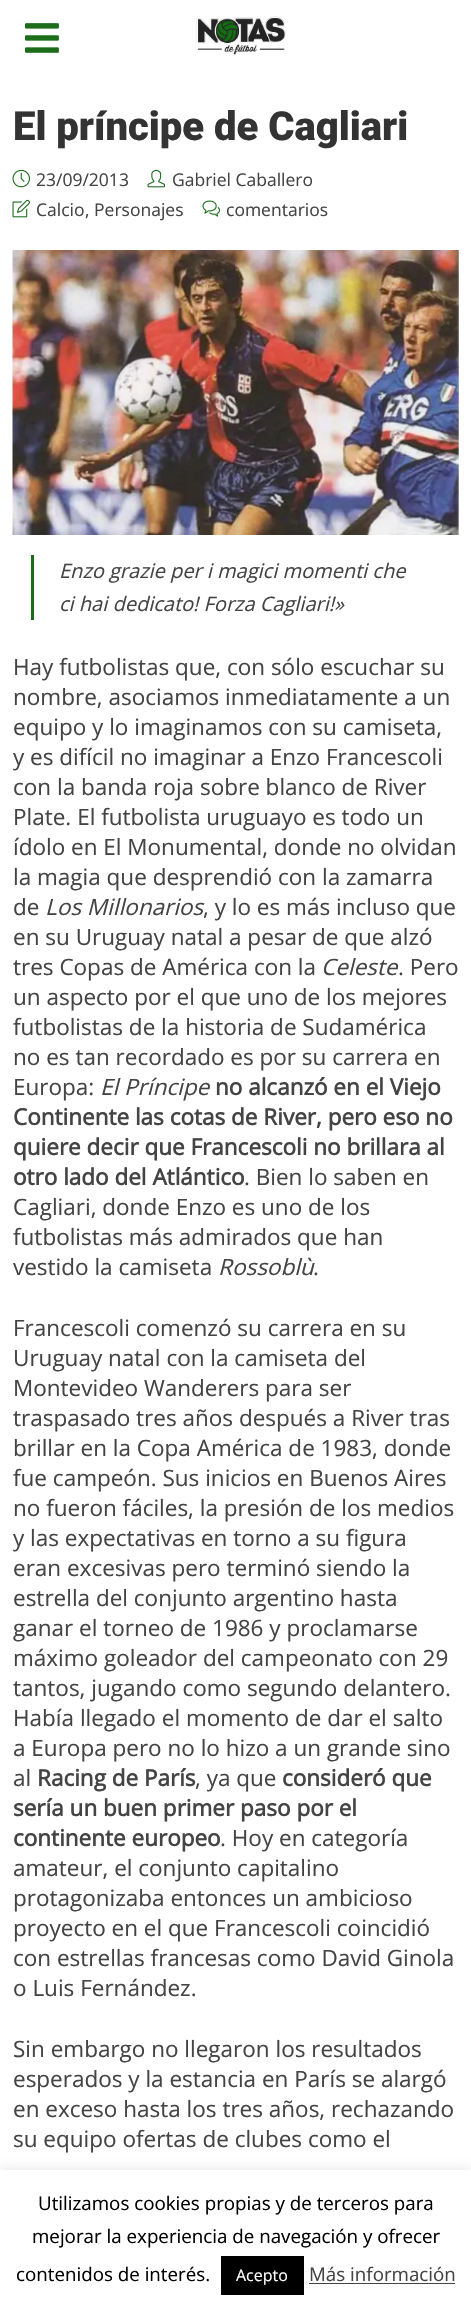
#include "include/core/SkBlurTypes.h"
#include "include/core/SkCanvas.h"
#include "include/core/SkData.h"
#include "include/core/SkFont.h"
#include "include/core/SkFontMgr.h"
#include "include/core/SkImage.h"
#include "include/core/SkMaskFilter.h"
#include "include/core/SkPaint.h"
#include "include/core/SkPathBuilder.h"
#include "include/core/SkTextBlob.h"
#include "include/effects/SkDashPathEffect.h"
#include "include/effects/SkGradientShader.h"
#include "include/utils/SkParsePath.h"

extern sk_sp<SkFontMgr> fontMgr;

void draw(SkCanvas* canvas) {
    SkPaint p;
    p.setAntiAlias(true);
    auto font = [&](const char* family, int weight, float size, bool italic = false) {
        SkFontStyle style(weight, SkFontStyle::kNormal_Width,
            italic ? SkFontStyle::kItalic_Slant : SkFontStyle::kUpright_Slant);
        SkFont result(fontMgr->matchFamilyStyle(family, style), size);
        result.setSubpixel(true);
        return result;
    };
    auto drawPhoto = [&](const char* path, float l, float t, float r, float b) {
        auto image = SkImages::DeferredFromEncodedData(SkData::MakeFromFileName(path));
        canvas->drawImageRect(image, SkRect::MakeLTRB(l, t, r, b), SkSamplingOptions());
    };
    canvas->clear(0xFFFFFFFF);
    drawPhoto("media/1.png", 25, 23, 59, 53);
    drawPhoto("media/2.png", 196, 16, 286, 55);
    auto font1 = font("Roboto", 900, 40);
    p.setColor(0xFF333333);
    canvas->drawString("El príncipe de Cagliari", 13, 140, font1, p);
    drawPhoto("media/3.png", 12, 169, 30, 188);
    auto font2 = font("Open Sans", 400, 17.5f);
    p.setColor(0xFF444444);
    canvas->drawString("23/09/2013", 36, 186, font2, p);
    drawPhoto("media/4.png", 147, 169, 165, 188);
    canvas->drawString("Gabriel Caballero", 172, 186, font2, p);
    drawPhoto("media/5.png", 12, 199, 30, 218);
    canvas->drawString("Calcio", 36, 216, font2, p);
    canvas->drawString(", Personajes", 85, 216, font2, p);
    drawPhoto("media/6.png", 202, 200, 220, 217);
    canvas->drawString("comentarios", 226, 216, font2, p);
    drawPhoto("media/7.png", 12, 250, 459, 535);
    p.setColor(0xFF1B6D19);
    canvas->drawRect(SkRect::MakeLTRB(31, 555, 34, 620), p);
    auto font3 = font("Open Sans", 400, 20, true);
    p.setColor(0xFF444444);
    canvas->drawString("Enzo grazie per i magici momenti che", 59, 578, font3, p);
    canvas->drawString("ci hai dedicato! Forza Cagliari!»", 59, 611, font3, p);
    auto font4 = font("Open Sans", 400, 22.5f);
    {
        const struct { const char* s; float x, y; } items[] = {
            {"Hay futbolistas que, con sólo escuchar su", 13, 675},
            {"nombre, asociamos inmediatamente a un", 13, 705},
            {"equipo y lo imaginamos con su camiseta,", 13, 735},
            {"y es difícil no imaginar a Enzo Francescoli", 13, 765},
            {"con la banda roja sobre blanco de River", 13, 795},
            {"Plate. El futbolista uruguayo es todo un", 13, 825},
            {"ídolo en El Monumental, donde no olvidan", 13, 855},
            {"la magia que desprendió con la zamarra", 13, 885},
            {"de", 13, 915},
        };
        for (auto [s, x, y] : items) {
            canvas->drawString(s, x, y, font4, p);
        }
    }
    auto font5 = font("Open Sans", 400, 22.5f, true);
    canvas->drawString("Los Millonarios", 45, 915, font5, p);
    {
        const struct { const char* s; float x, y; } items[] = {
            {", y lo es más incluso que", 203, 915},
            {"en su Uruguay natal a pesar de que alzó", 13, 945},
            {"tres Copas de América con la", 13, 975},
        };
        for (auto [s, x, y] : items) {
            canvas->drawString(s, x, y, font4, p);
        }
    }
    canvas->drawString("Celeste", 321, 975, font5, p);
    {
        const struct { const char* s; float x, y; } items[] = {
            {". Pero", 398, 975},
            {"un aspecto por el que uno de los mejores", 13, 1005},
            {"futbolistas de la historia de Sudamérica", 13, 1035},
            {"no es tan recordado es por su carrera en", 13, 1065},
            {"Europa:", 13, 1095},
        };
        for (auto [s, x, y] : items) {
            canvas->drawString(s, x, y, font4, p);
        }
    }
    canvas->drawString("El Príncipe", 100, 1095, font5, p);
    auto font6 = font("Open Sans", 700, 22.5f);
    {
        const struct { const char* s; float x, y; } items[] = {
            {"no alcanzó en el Viejo", 215, 1095},
            {"Continente las cotas de River, pero eso no", 13, 1125},
            {"quiere decir que Francescoli no brillara al", 13, 1155},
            {"otro lado del Atlántico", 13, 1185},
        };
        for (auto [s, x, y] : items) {
            canvas->drawString(s, x, y, font6, p);
        }
    }
    {
        const struct { const char* s; float x, y; } items[] = {
            {". Bien lo saben en", 244, 1185},
            {"Cagliari, donde Enzo es uno de los", 13, 1215},
            {"futbolistas más admirados que han", 13, 1245},
            {"vestido la camiseta", 13, 1275},
        };
        for (auto [s, x, y] : items) {
            canvas->drawString(s, x, y, font4, p);
        }
    }
    canvas->drawString("Rossoblù", 218, 1275, font5, p);
    {
        const struct { const char* s; float x, y; } items[] = {
            {".", 313, 1275},
            {"Francescoli comenzó su carrera en su", 13, 1336},
            {"Uruguay natal con la camiseta del", 13, 1366},
            {"Montevideo Wanderers para ser", 13, 1396},
            {"traspasado tres años después a River tras", 13, 1426},
            {"brillar en la Copa América de 1983, donde", 13, 1456},
            {"fue campeón. Sus inicios en Buenos Aires", 13, 1486},
            {"no fueron fáciles, la presión de los medios", 13, 1516},
            {"y las expectativas en torno a su figura", 13, 1546},
            {"eran excesivas pero terminó siendo la", 13, 1576},
            {"estrella del conjunto argentino hasta", 13, 1606},
            {"ganar el torneo de 1986 y proclamarse", 13, 1636},
            {"máximo goleador del campeonato con 29", 13, 1666},
            {"tantos, jugando como segundo delantero.", 13, 1696},
            {"Había llegado el momento de dar el salto", 13, 1726},
            {"a Europa pero no lo hizo a un grande sino", 13, 1756},
            {"al", 13, 1786},
        };
        for (auto [s, x, y] : items) {
            canvas->drawString(s, x, y, font4, p);
        }
    }
    canvas->drawString("Racing de París", 37, 1786, font6, p);
    canvas->drawString(", ya que", 195, 1786, font4, p);
    {
        const struct { const char* s; float x, y; } items[] = {
            {"consideró que", 282, 1786},
            {"sería un buen primer paso por el", 13, 1816},
            {"continente europeo", 13, 1846},
        };
        for (auto [s, x, y] : items) {
            canvas->drawString(s, x, y, font6, p);
        }
    }
    {
        const struct { const char* s; float x, y; } items[] = {
            {". Hoy en categoría", 220, 1846},
            {"amateur, el conjunto capitalino", 13, 1876},
            {"protagonizaba entonces un ambicioso", 13, 1906},
            {"proyecto en el que Francescoli coincidió", 13, 1936},
            {"con estrellas francesas como David Ginola", 13, 1966},
            {"o Luis Fernández.", 13, 1996},
            {"Sin embargo no llegaron los resultados", 13, 2057},
            {"esperados y la estancia en París se alargó", 13, 2087},
            {"en exceso hasta los tres años, rechazando", 13, 2117},
            {"su equipo ofertas de clubes como el", 13, 2147},
        };
        for (auto [s, x, y] : items) {
            canvas->drawString(s, x, y, font4, p);
        }
    }
    p.setColor(0x4DACABAB);
    p.setMaskFilter(SkMaskFilter::MakeBlur(kNormal_SkBlurStyle, 6));
    canvas->drawRect(SkRect::MakeLTRB(0, 2169, 471, 2309), p);
    p.setMaskFilter(nullptr);
    p.setColor(0xFFFFFFFF);
    canvas->drawRect(SkRect::MakeLTRB(0, 2170, 471, 2310), p);
    auto font7 = font("Open Sans", 400, 18.75f);
    p.setColor(0xFF000000);
    {
        const struct { const char* s; float x, y; } items[] = {
            {"Utilizamos cookies propias y de terceros para", 38, 2210},
            {"mejorar la experiencia de navegación y ofrecer", 32, 2243},
            {"contenidos de interés.", 16, 2281},
        };
        for (auto [s, x, y] : items) {
            canvas->drawString(s, x, y, font7, p);
        }
    }
    canvas->drawRect(SkRect::MakeLTRB(221, 2256, 304, 2295), p);
    auto font8 = font("Open Sans", 400, 16);
    p.setColor(0xFFFFFFFF);
    canvas->drawString("Acepto", 236, 2281, font8, p);
    p.setColor(0xFF444444);
    canvas->drawString("Más información", 309, 2281, font7, p);
    canvas->drawRect(SkRect::MakeLTRB(309, 2283, 455, 2284), p);
}
